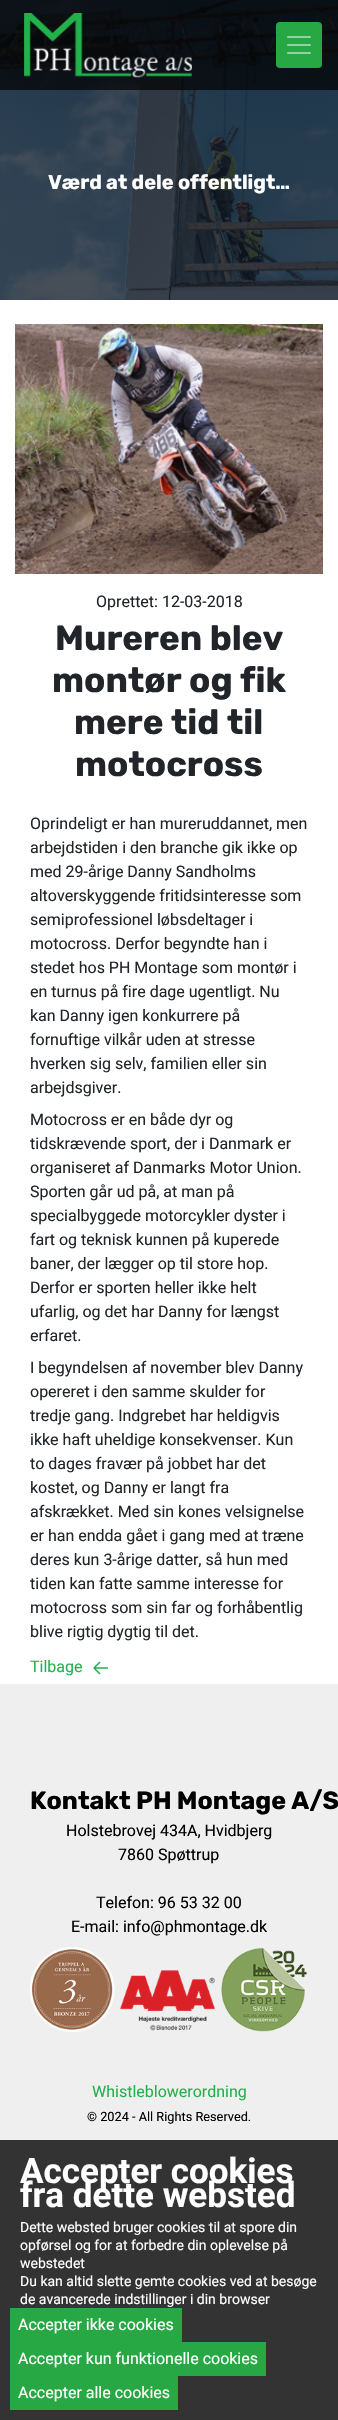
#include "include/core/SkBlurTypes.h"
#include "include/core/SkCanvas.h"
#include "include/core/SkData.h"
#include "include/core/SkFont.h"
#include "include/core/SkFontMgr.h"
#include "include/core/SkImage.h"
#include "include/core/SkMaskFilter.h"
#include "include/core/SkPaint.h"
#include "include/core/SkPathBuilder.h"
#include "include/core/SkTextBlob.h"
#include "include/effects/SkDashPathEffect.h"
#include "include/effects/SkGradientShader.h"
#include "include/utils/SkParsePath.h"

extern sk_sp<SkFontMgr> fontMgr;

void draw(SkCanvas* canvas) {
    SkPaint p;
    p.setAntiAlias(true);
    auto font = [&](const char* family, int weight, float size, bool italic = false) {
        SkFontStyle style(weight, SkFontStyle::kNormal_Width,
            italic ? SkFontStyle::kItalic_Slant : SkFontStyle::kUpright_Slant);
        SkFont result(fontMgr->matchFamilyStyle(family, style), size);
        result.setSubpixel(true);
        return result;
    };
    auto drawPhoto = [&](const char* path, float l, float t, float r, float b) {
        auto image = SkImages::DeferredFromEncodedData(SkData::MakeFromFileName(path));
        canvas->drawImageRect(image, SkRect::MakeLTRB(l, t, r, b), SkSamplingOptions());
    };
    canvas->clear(0xFFFFFFFF);
    drawPhoto("media/3.png", 0, 0, 338, 300);
    p.setColor(0xB3000000);
    canvas->drawRect(SkRect::MakeLTRB(0, 0, 338, 90), p);
    drawPhoto("media/1.png", 24, 13, 192, 78);
    p.setColor(0xFF28A745);
    canvas->drawRoundRect(SkRect::MakeLTRB(276, 22, 322, 68), 4, 4, p);
    drawPhoto("media/2.png", 287, 36, 311, 54);
    auto font1 = font("Rubik", 700, 20);
    p.setColor(0xFFFFFFFF);
    canvas->drawString("Værd at dele offentligt…", 48, 189, font1, p);
    drawPhoto("media/4.png", 15, 324, 323, 574);
    auto font2 = font("Roboto", 400, 16);
    p.setColor(0xFF212529);
    canvas->drawString("Oprettet: 12-03-2018", 96, 607, font2, p);
    auto font3 = font("Rubik", 700, 35);
    {
        const struct { const char* s; float x, y; } items[] = {
            {"Mureren blev", 55, 650},
            {"montør og fik", 52, 692},
            {"mere tid til", 74, 734},
            {"motocross", 75, 776},
        };
        for (auto [s, x, y] : items) {
            canvas->drawString(s, x, y, font3, p);
        }
    }
    {
        const struct { const char* s; float x, y; } items[] = {
            {"Oprindeligt er han mureruddannet, men", 30, 829},
            {"arbejdstiden i den branche gik ikke op", 30, 853},
            {"med 29-årige Danny Sandholms", 30, 877},
            {"altoverskyggende fritidsinteresse som", 30, 901},
            {"semiprofessionel løbsdeltager i", 30, 925},
            {"motocross. Derfor begyndte han i", 30, 949},
            {"stedet hos PH Montage som montør i", 30, 973},
            {"en turnus på fire dage ugentligt. Nu", 30, 997},
            {"kan Danny igen konkurrere på", 30, 1021},
            {"fornuftige vilkår uden at stresse", 30, 1045},
            {"hverken sig selv, familien eller sin", 30, 1069},
            {"arbejdsgiver.", 30, 1093},
            {"Motocross er en både dyr og", 30, 1125},
            {"tidskrævende sport, der i Danmark er", 30, 1149},
            {"organiseret af Danmarks Motor Union.", 30, 1173},
            {"Sporten går ud på, at man på", 30, 1197},
            {"specialbyggede motorcykler dyster i", 30, 1221},
            {"fart og teknisk kunnen på kuperede", 30, 1245},
            {"baner, der lægger op til store hop.", 30, 1269},
            {"Derfor er sporten heller ikke helt", 30, 1293},
            {"ufarlig, og det har Danny for længst", 30, 1317},
            {"erfaret.", 30, 1341},
            {"I begyndelsen af november blev Danny", 30, 1373},
            {"opereret i den samme skulder for", 30, 1397},
            {"tredje gang. Indgrebet har heldigvis", 30, 1421},
            {"ikke haft uheldige konsekvenser. Kun", 30, 1445},
            {"to dages fravær på jobbet har det", 30, 1469},
            {"kostet, og Danny er langt fra", 30, 1493},
            {"afskrækket. Med sin kones velsignelse", 30, 1517},
            {"er han endda gået i gang med at træne", 30, 1541},
            {"deres kun 3-årige datter, så hun med", 30, 1565},
            {"tiden kan fatte samme interesse for", 30, 1589},
            {"motocross som sin far og forhåbentlig", 30, 1613},
            {"blive rigtig dygtig til det.", 30, 1637},
        };
        for (auto [s, x, y] : items) {
            canvas->drawString(s, x, y, font2, p);
        }
    }
    p.setColor(0xFF22B24C);
    canvas->drawString("Tilbage", 30, 1672, font2, p);
    p.setStyle(SkPaint::kStroke_Style);
    p.setStrokeWidth(1.5f);
    p.setStrokeJoin(SkPaint::kRound_Join);
    canvas->drawPath(SkPathBuilder().moveTo(100, 1674).lineTo(94, 1668).lineTo(100, 1662).moveTo(108, 1668).lineTo(94, 1668).detach(), p);
    p.setStyle(SkPaint::kFill_Style);
    p.setColor(0xFFEFEFEF);
    canvas->drawRect(SkRect::MakeLTRB(0, 1684, 338, 2140), p);
    auto font4 = font("Rubik", 700, 25);
    p.setColor(0xFF000000);
    canvas->drawString("Kontakt PH Montage A/S", 30, 1809, font4, p);
    {
        const struct { const char* s; float x, y; } items[] = {
            {"Holstebrovej 434A, Hvidbjerg", 66, 1836},
            {"7860 Spøttrup", 118, 1860},
            {"Telefon: 96 53 32 00", 96, 1908},
            {"E-mail: info@phmontage.dk", 71, 1932},
        };
        for (auto [s, x, y] : items) {
            canvas->drawString(s, x, y, font2, p);
        }
    }
    drawPhoto("media/5.png", 30, 1947, 307, 2032);
    p.setColor(0xFF22B24C);
    canvas->drawString("Whistleblowerordning", 92, 2097, font2, p);
    auto font5 = font("Roboto", 400, 12.75f);
    p.setColor(0xFF000000);
    canvas->drawString("© 2024 - All Rights Reserved.", 87, 2121, font5, p);
    p.setColor(0xFF333333);
    canvas->drawRect(SkRect::MakeLTRB(0, 2140, 338, 2420), p);
    auto font6 = font("Roboto", 700, 35);
    p.setColor(0xFFFFFFFF);
    canvas->drawString("Accepter cookies", 20, 2183, font6, p);
    canvas->drawString("fra dette websted", 20, 2207, font6, p);
    auto font7 = font("Roboto", 400, 14);
    {
        const struct { const char* s; float x, y; } items[] = {
            {"Dette websted bruger cookies til at spore din", 20, 2232},
            {"opførsel og for at forbedre din oplevelse på", 20, 2250},
            {"webstedet", 20, 2268},
            {"Du kan altid slette gemte cookies ved at besøge", 20, 2286},
            {"de avancerede indstillinger i din browser", 20, 2304},
        };
        for (auto [s, x, y] : items) {
            canvas->drawString(s, x, y, font7, p);
        }
    }
    p.setColor(0xFF28A745);
    canvas->drawRect(SkRect::MakeLTRB(10, 2308, 182, 2342), p);
    p.setColor(0xFFFFFFFF);
    canvas->drawString("Accepter ikke cookies", 18, 2330, font2, p);
    p.setColor(0xFF28A745);
    canvas->drawRect(SkRect::MakeLTRB(10, 2342, 266, 2376), p);
    p.setColor(0xFFFFFFFF);
    canvas->drawString("Accepter kun funktionelle cookies", 18, 2364, font2, p);
    p.setColor(0xFF28A745);
    canvas->drawRect(SkRect::MakeLTRB(10, 2376, 178, 2410), p);
    p.setColor(0xFFFFFFFF);
    canvas->drawString("Accepter alle cookies", 18, 2398, font2, p);
}
